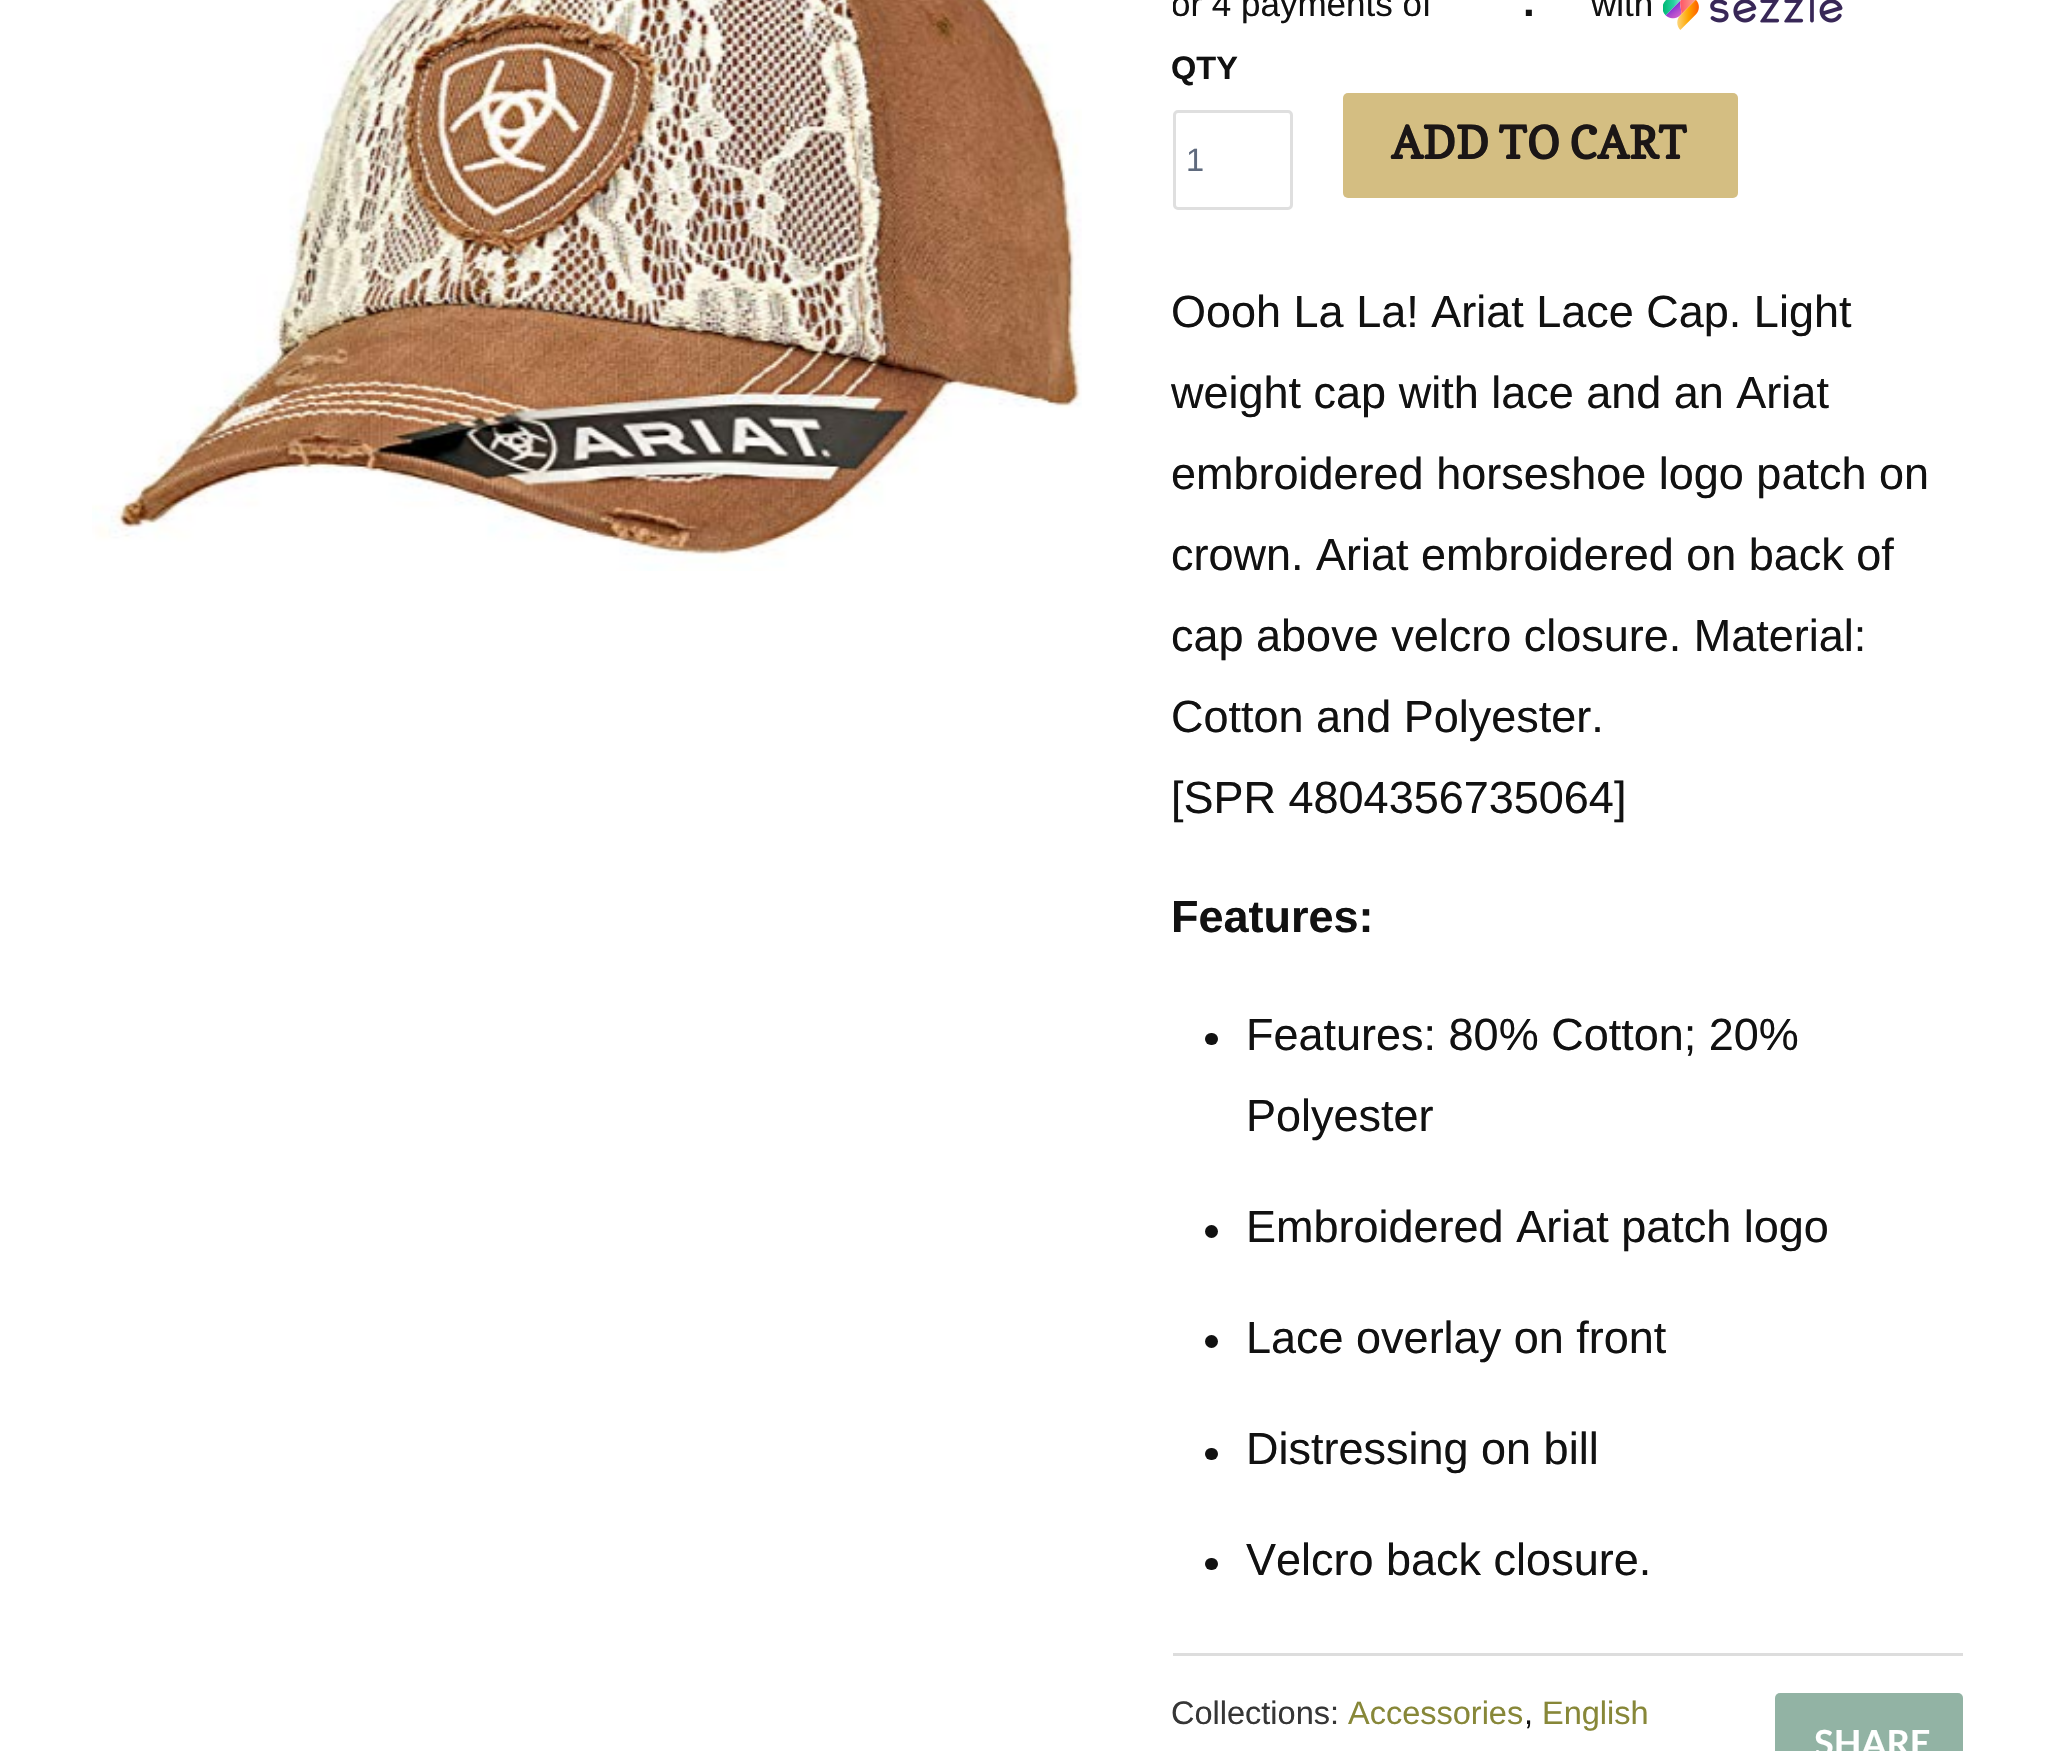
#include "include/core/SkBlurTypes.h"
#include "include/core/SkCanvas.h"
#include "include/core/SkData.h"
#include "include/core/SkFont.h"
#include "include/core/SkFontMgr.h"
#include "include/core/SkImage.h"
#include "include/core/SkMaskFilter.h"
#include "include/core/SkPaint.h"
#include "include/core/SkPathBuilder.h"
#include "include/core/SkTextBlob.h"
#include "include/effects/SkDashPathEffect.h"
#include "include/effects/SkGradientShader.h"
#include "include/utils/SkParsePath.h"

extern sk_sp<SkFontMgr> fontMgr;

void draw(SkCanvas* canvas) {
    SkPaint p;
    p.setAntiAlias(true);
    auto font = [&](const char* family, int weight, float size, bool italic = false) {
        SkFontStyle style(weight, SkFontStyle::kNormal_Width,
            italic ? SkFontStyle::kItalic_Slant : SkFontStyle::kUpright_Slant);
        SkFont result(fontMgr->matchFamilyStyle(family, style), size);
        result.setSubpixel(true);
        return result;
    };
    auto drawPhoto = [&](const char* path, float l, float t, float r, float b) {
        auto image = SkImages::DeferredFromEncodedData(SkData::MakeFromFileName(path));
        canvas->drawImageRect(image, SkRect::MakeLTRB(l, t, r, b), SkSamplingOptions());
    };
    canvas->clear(0xFFFFFFFF);
    drawPhoto("media/1.png", 92, 0, 1082, 571);
    canvas->save();
    canvas->clipRect(SkRect::MakeLTRB(1173, 0, 1963, 30));
    auto font1 = font("Liberation Sans", 400, 35);
    p.setColor(0xFF111111);
    canvas->drawString("or 4 payments of", 1171, 16, font1, p);
    canvas->restore();
    auto font2 = font("Liberation Sans", 700, 42);
    canvas->drawString(".", 1523, 16, font2, p);
    canvas->drawString("with", 1591, 16, font1, p);
    drawPhoto("media/2.png", 1663, 0, 1843, 30);
    auto font3 = font("Liberation Sans", 700, 32.5f);
    canvas->drawString("QTY", 1171, 79, font3, p);
    p.setStyle(SkPaint::kStroke_Style);
    p.setStrokeWidth(3);
    p.setColor(0xFFDFDFDF);
    canvas->drawRoundRect(SkRect::MakeLTRB(1174.5f, 111.5f, 1291.5f, 208.5f), 3.5f, 3.5f, p);
    auto font4 = font("Liberation Sans", 400, 32.5f);
    p.setStyle(SkPaint::kFill_Style);
    p.setColor(0xFF5F6A7D);
    canvas->drawString("1", 1186, 171, font4, p);
    p.setColor(0xFFD4BE82);
    canvas->drawRoundRect(SkRect::MakeLTRB(1343, 93, 1738, 198), 5, 5, p);
    auto font5 = font("Copse", 700, 45);
    p.setColor(0xFF1B1616);
    canvas->drawString("ADD TO CART", 1391, 159, font5, p);
    auto font6 = font("Liberation Sans", 400, 45);
    p.setColor(0xFF111111);
    {
        const struct { const char* s; float x, y; } items[] = {
            {"Oooh La La! Ariat Lace Cap. Light", 1171, 327},
            {"weight cap with lace and an Ariat", 1171, 408},
            {"embroidered horseshoe logo patch on", 1171, 489},
            {"crown. Ariat embroidered on back of", 1171, 570},
            {"cap above velcro closure. Material:", 1171, 651},
            {"Cotton and Polyester.", 1171, 732},
            {"[SPR 4804356735064]", 1171, 813},
        };
        for (auto [s, x, y] : items) {
            canvas->drawString(s, x, y, font6, p);
        }
    }
    auto font7 = font("Liberation Sans", 700, 45);
    canvas->drawString("Features:", 1171, 932, font7, p);
    canvas->drawRoundRect(SkRect::MakeLTRB(1205, 1033, 1218, 1045), 6, 6, p);
    canvas->drawString("Features: 80% Cotton; 20%", 1246, 1050, font6, p);
    canvas->drawString("Polyester", 1246, 1131, font6, p);
    canvas->drawCircle(1211.5f, 1231.5f, 6.5f, p);
    canvas->drawString("Embroidered Ariat patch logo", 1246, 1242, font6, p);
    canvas->drawCircle(1211.5f, 1341.5f, 6.5f, p);
    canvas->drawString("Lace overlay on front", 1246, 1353, font6, p);
    canvas->drawRoundRect(SkRect::MakeLTRB(1205, 1448, 1218, 1460), 6, 6, p);
    canvas->drawString("Distressing on bill", 1246, 1464, font6, p);
    canvas->drawRoundRect(SkRect::MakeLTRB(1205, 1558, 1218, 1570), 6, 6, p);
    canvas->drawString("Velcro back closure.", 1246, 1575, font6, p);
    p.setColor(0xFFDDDDDD);
    canvas->drawRect(SkRect::MakeLTRB(1173, 1653, 1963, 1656), p);
    p.setColor(0xFF363636);
    canvas->drawString("Collections:", 1171, 1724, font4, p);
    p.setColor(0xFF878738);
    canvas->drawString("Accessories", 1348, 1724, font4, p);
    p.setColor(0xFF111111);
    canvas->drawString(",", 1524, 1724, font4, p);
    p.setColor(0xFF878738);
    canvas->drawString("English", 1542, 1724, font4, p);
    p.setColor(0xFF92B3A4);
    canvas->drawRoundRect(SkRect::MakeLTRB(1775, 1693, 1963, 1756), 5, 5, p);
    auto font8 = font("Lato", 700, 36);
    p.setColor(0xFFFFFFFF);
    canvas->drawString("SHARE", 1814, 1756, font8, p);
}
